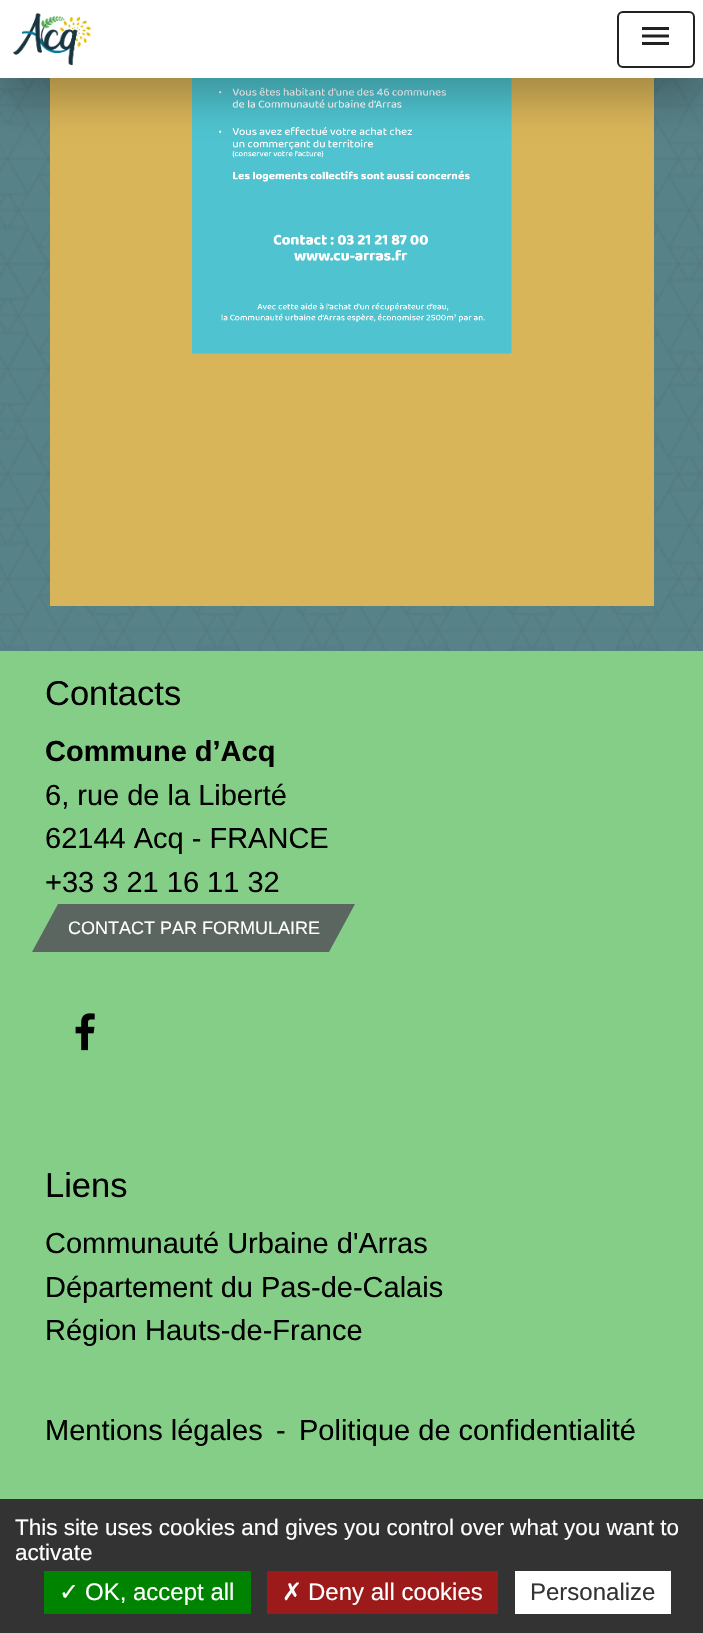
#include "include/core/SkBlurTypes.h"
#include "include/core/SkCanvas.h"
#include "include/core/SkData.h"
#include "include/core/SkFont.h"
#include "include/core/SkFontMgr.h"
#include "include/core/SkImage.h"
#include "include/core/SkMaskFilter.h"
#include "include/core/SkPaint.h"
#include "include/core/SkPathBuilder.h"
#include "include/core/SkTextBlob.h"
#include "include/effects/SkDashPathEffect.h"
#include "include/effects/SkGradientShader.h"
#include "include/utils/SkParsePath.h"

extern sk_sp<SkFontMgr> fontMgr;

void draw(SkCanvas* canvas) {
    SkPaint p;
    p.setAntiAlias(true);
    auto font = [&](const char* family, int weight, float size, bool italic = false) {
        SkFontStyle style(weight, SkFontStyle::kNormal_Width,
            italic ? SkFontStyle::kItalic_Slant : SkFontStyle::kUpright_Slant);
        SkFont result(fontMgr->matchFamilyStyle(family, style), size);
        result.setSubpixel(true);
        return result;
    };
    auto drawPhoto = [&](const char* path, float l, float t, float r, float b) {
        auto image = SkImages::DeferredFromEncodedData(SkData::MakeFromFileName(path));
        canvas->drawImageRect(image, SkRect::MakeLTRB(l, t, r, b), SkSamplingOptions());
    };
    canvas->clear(0xFF5AA9B5);
    drawPhoto("media/1.png", 0, 78, 703, 651);
    p.setColor(0xFFD9B559);
    canvas->drawRect(SkRect::MakeLTRB(50, 78, 654, 606), p);
    drawPhoto("media/4.png", 192, 78, 512, 354);
    p.setColor(0x40000000);
    p.setMaskFilter(SkMaskFilter::MakeBlur(kNormal_SkBlurStyle, 22));
    canvas->drawRect(SkRect::MakeLTRB(0, 20, 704, 98), p);
    p.setMaskFilter(nullptr);
    p.setColor(0xFFFFFFFF);
    canvas->drawRect(SkRect::MakeLTRB(0, 0, 703, 78), p);
    drawPhoto("media/2.png", 13, 13, 92, 66);
    p.setStyle(SkPaint::kStroke_Style);
    p.setStrokeWidth(2);
    p.setColor(0xFF202221);
    canvas->drawRoundRect(SkRect::MakeLTRB(618, 12, 694, 67), 5, 5, p);
    drawPhoto("media/3.png", 642, 27, 669, 45);
    p.setStyle(SkPaint::kFill_Style);
    p.setColor(0xFF85CE87);
    canvas->drawRect(SkRect::MakeLTRB(0, 651, 703, 1499), p);
    auto font1 = font("Liberation Sans", 400, 34.5f);
    p.setColor(0xFF000000);
    canvas->drawString("Contacts", 45, 705, font1, p);
    auto font2 = font("Liberation Sans", 700, 29);
    canvas->drawString("Commune d’Acq", 45, 761, font2, p);
    auto font3 = font("Liberation Sans", 400, 29);
    {
        const struct { const char* s; float x, y; } items[] = {
            {"6, rue de la Liberté", 45, 805},
            {"62144 Acq - FRANCE", 45, 848},
            {"+33 3 21 16 11 32", 45, 892},
        };
        for (auto [s, x, y] : items) {
            canvas->drawString(s, x, y, font3, p);
        }
    }
    p.setColor(0xFF5B6660);
    canvas->drawPath(SkPathBuilder().moveTo(58, 904).lineTo(355, 904).lineTo(329, 952).lineTo(32, 952).close().detach(), p);
    auto font4 = font("Liberation Sans", 400, 18);
    p.setColor(0xFFFFFFFF);
    canvas->drawString("CONTACT PAR FORMULAIRE", 68, 934, font4, p);
    drawPhoto("media/5.png", 75, 1013, 95, 1051);
    p.setColor(0xFF000000);
    canvas->drawString("Liens", 45, 1197, font1, p);
    {
        const struct { const char* s; float x, y; } items[] = {
            {"Communauté Urbaine d'Arras", 45, 1253},
            {"Département du Pas-de-Calais", 45, 1297},
            {"Région Hauts-de-France", 45, 1340},
            {"Mentions légales", 45, 1440},
            {"-", 276, 1440},
            {"Politique de confidentialité", 299, 1440},
        };
        for (auto [s, x, y] : items) {
            canvas->drawString(s, x, y, font3, p);
        }
    }
    p.setColor(0xFF333333);
    canvas->drawRect(SkRect::MakeLTRB(0, 1499, 703, 1633), p);
    auto font5 = font("Liberation Sans", 400, 22.5f);
    p.setColor(0xFFFFFFFF);
    canvas->drawString("This site uses cookies and gives you control over what you want to", 15, 1535, font5, p);
    canvas->drawString("activate", 15, 1560, font5, p);
    p.setColor(0xFF008300);
    canvas->drawRect(SkRect::MakeLTRB(44, 1571, 251, 1614), p);
    auto font6 = font("DejaVu Sans", 400, 24);
    p.setColor(0xFFFFFFFF);
    canvas->drawString("✓", 59, 1600, font6, p);
    auto font7 = font("Liberation Sans", 400, 24);
    canvas->drawString("OK, accept all", 85, 1600, font7, p);
    p.setColor(0xFF9C1A1A);
    canvas->drawRect(SkRect::MakeLTRB(267, 1571, 498, 1614), p);
    p.setColor(0xFFFFFFFF);
    canvas->drawString("✗", 282, 1600, font6, p);
    canvas->drawString("Deny all cookies", 308, 1600, font7, p);
    canvas->drawRect(SkRect::MakeLTRB(515, 1571, 671, 1614), p);
    p.setColor(0xFF333333);
    canvas->drawString("Personalize", 530, 1600, font7, p);
}
